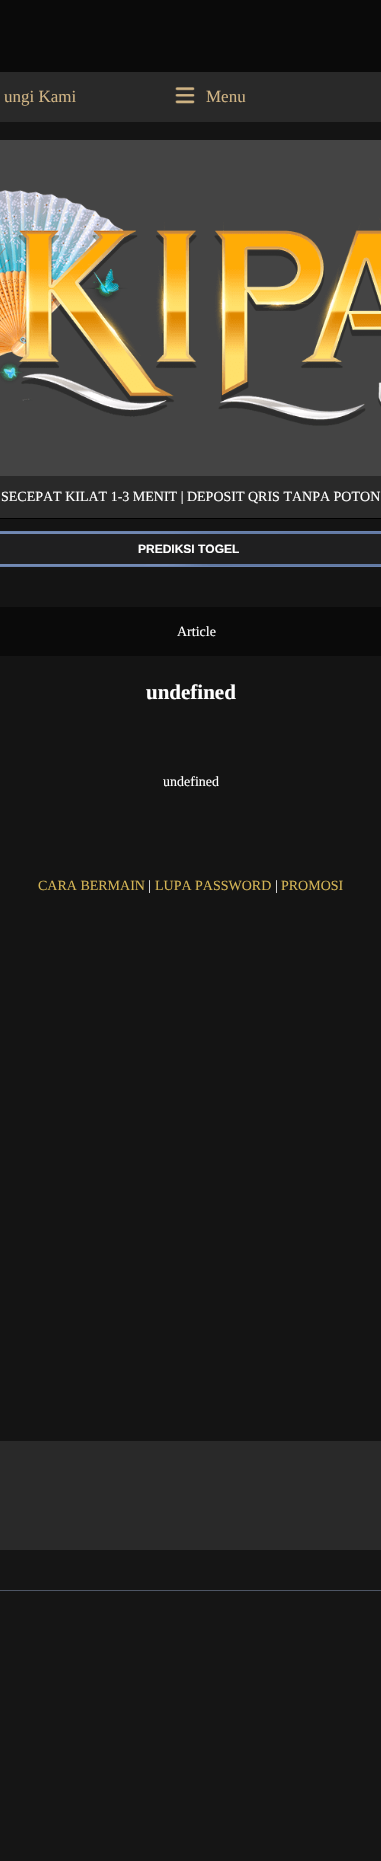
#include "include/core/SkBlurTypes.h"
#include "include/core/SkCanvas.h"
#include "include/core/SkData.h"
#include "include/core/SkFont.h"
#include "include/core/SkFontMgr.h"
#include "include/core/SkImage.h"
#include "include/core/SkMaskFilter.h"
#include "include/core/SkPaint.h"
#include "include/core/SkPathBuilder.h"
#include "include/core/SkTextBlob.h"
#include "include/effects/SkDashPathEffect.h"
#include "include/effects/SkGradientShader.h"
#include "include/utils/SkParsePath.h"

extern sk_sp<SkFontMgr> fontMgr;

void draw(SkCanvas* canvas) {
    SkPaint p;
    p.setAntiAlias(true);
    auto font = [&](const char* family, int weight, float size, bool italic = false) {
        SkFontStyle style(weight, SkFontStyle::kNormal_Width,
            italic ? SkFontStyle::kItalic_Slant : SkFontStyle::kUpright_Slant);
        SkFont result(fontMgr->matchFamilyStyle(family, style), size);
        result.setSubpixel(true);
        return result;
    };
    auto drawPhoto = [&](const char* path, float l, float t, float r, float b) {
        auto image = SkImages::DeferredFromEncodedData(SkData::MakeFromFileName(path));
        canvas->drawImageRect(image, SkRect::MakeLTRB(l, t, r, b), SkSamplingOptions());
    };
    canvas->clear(0xFF292929);
    auto font1 = font("Liberation Serif", 400, 17);
    p.setColor(0xFFD0B484);
    canvas->drawString("ungi Kami", 4, 102, font1, p);
    drawPhoto("media/1.png", 175, 87, 195, 104);
    canvas->drawString("Menu", 206, 102, font1, p);
    {
        const struct { float l, t, r, b; SkColor color; } items[] = {
            {0, 122, 381, 1441, 0xFF141414},
            {0, 0, 381, 72, 0xFF0A0A0A},
            {0, 140, 381, 476, 0xFF444444},
        };
        for (auto [l, t, r, b, color] : items) {
            p.setColor(color);
            canvas->drawRect(SkRect::MakeLTRB(l, t, r, b), p);
        }
    }
    drawPhoto("media/2.png", 0, 190, 381, 426);
    p.setColor(0xFF292929);
    canvas->drawRect(SkRect::MakeLTRB(0, 476, 381, 518), p);
    p.setColor(0xFF000000);
    canvas->drawRect(SkRect::MakeLTRB(0, 518, 381, 519), p);
    auto font2 = font("Liberation Serif", 400, 14);
    p.setColor(0xFFFFFFFF);
    canvas->drawString("SECEPAT KILAT 1-3 MENIT | DEPOSIT QRIS TANPA POTON", 1, 501, font2, p);
    p.setColor(0xFF6A82AD);
    canvas->drawRect(SkRect::MakeLTRB(0, 531, 381, 567), p);
    drawPhoto("media/3.png", 0, 532, 381, 566);
    p.setColor(0xFF1F1F20);
    canvas->drawRect(SkRect::MakeLTRB(0, 534, 381, 564), p);
    auto font3 = font("Liberation Sans", 700, 12);
    p.setColor(0xFFFFFFFF);
    canvas->drawString("PREDIKSI TOGEL", 138, 553, font3, p);
    p.setColor(0xFF0A0A0A);
    canvas->drawRect(SkRect::MakeLTRB(0, 607, 381, 656), p);
    p.setColor(0xFFFFFFFF);
    canvas->drawString("Article", 177, 636, font2, p);
    auto font4 = font("Liberation Serif", 700, 21);
    canvas->drawString("undefined", 146, 699, font4, p);
    canvas->drawString("undefined", 163, 786, font2, p);
    p.setColor(0xFFD3B455);
    canvas->drawString("CARA BERMAIN", 38, 890, font2, p);
    p.setColor(0xFFFFFFFF);
    canvas->drawString("|", 148, 890, font2, p);
    p.setColor(0xFFD3B455);
    canvas->drawString("LUPA PASSWORD", 155, 890, font2, p);
    p.setColor(0xFFFFFFFF);
    canvas->drawString("|", 275, 890, font2, p);
    p.setColor(0xFFD3B455);
    canvas->drawString("PROMOSI", 281, 890, font2, p);
    p.setColor(0xFF151515);
    canvas->drawRect(SkRect::MakeLTRB(0, 1550, 381, 1861), p);
    p.setColor(0xFF4E5665);
    canvas->drawRect(SkRect::MakeLTRB(0, 1590, 381, 1591), p);
}
